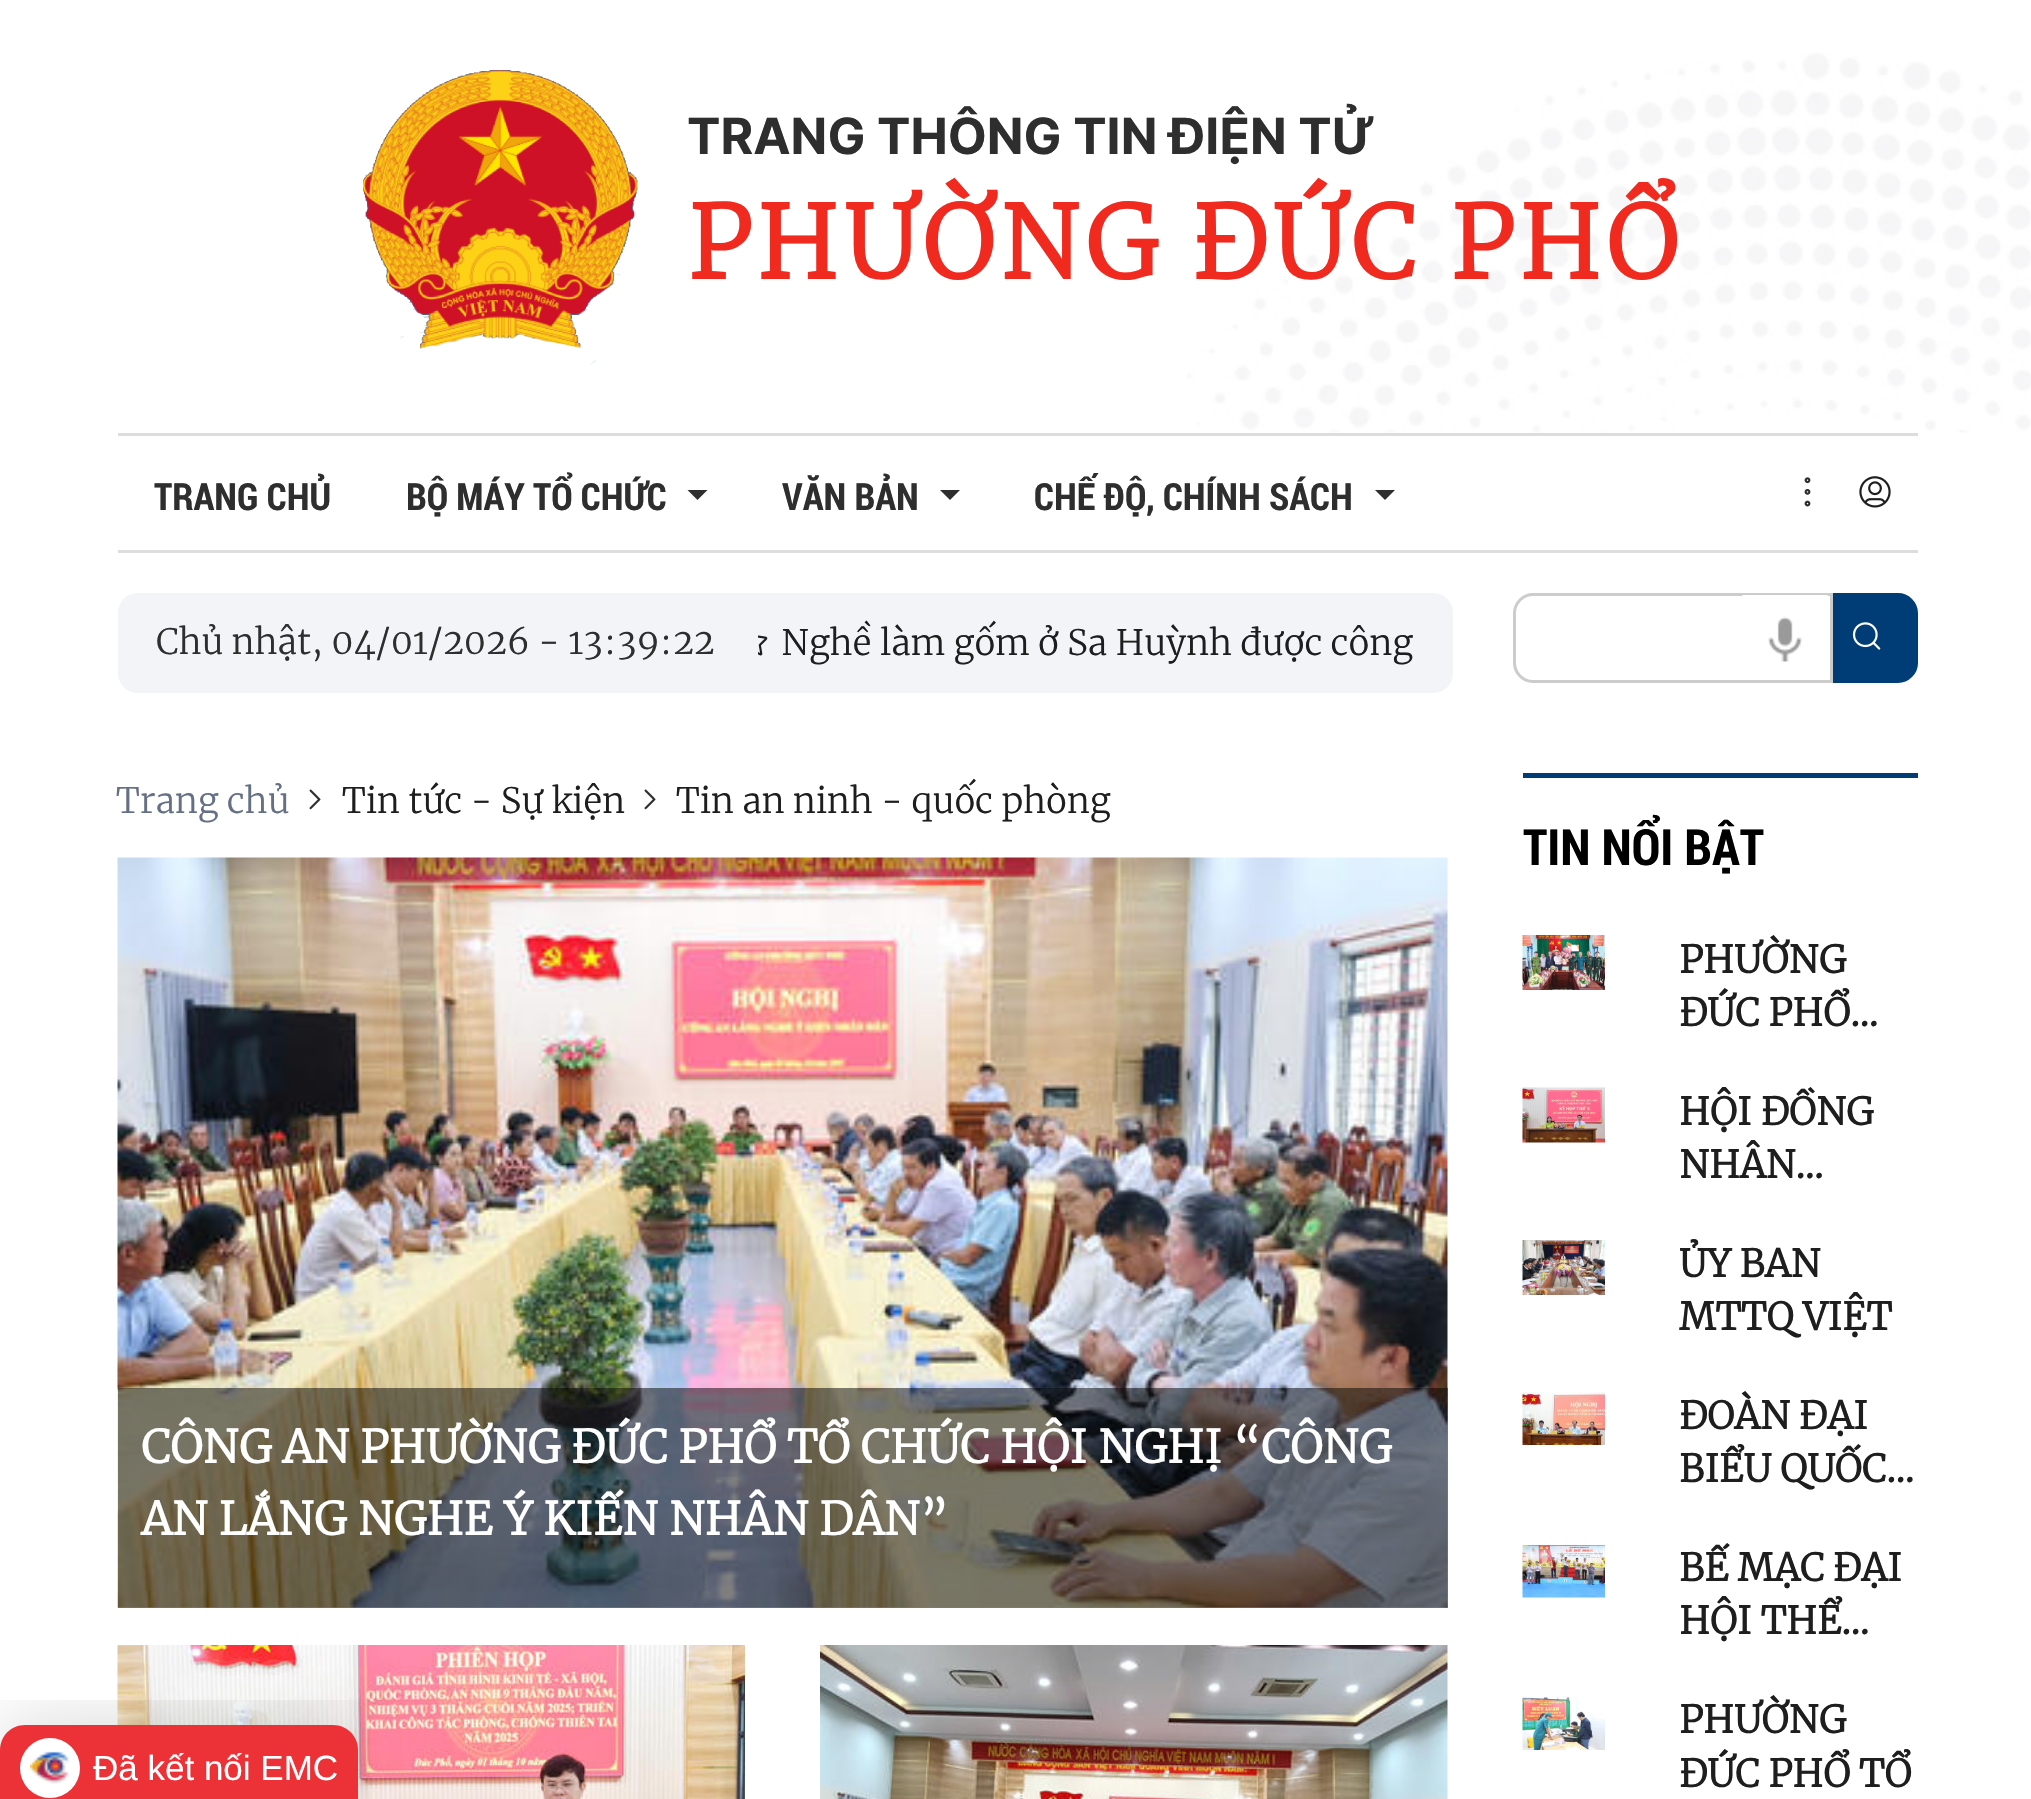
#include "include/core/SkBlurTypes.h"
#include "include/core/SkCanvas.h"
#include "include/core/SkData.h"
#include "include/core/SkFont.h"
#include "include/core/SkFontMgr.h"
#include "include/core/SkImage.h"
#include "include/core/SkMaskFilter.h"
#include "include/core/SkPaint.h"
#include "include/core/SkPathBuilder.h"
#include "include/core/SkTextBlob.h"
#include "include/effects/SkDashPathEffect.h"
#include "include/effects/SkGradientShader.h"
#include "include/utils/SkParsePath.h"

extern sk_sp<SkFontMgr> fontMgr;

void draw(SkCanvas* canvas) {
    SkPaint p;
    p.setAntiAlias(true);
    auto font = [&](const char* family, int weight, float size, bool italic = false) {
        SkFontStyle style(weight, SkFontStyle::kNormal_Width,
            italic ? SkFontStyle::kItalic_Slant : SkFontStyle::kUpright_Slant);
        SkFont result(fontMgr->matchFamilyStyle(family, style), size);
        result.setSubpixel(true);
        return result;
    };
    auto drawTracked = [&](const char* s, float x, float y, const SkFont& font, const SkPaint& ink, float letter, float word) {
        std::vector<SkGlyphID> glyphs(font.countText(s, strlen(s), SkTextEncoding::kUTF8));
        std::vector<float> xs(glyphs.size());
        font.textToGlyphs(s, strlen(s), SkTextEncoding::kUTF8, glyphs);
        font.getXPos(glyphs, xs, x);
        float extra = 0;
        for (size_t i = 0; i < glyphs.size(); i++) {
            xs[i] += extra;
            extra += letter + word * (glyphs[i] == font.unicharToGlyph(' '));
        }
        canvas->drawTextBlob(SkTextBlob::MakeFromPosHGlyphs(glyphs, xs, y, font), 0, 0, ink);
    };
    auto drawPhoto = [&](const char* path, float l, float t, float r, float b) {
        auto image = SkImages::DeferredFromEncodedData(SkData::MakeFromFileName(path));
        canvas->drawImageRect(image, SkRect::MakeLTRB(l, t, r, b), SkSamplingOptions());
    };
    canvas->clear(0xFFFFFFFF);
    drawPhoto("media/1.png", 1187, 53, 2031, 433);
    drawPhoto("media/2.png", 363, 70, 638, 365);
    auto font1 = font("Inter", 700, 50);
    p.setColor(0xFF2E2E2E);
    canvas->drawString("TRANG THÔNG TIN ĐIỆN TỬ", 687, 154, font1, p);
    auto font2 = font("Merriweather", 700, 100);
    p.setColor(0xFFF12A20);
    drawTracked("PHƯỜNG ĐỨC PHỔ", 687, 279, font2, p, 5, 0);
    p.setColor(0xFFDDDDDD);
    canvas->drawRect(SkRect::MakeLTRB(118, 433, 1918, 436), p);
    canvas->drawRect(SkRect::MakeLTRB(118, 550, 1918, 553), p);
    auto font3 = font("Roboto Condensed", 700, 37.5f);
    p.setColor(0xFF2E2E2E);
    canvas->drawString("TRANG CHỦ", 154, 510, font3, p);
    canvas->drawString("BỘ MÁY TỔ CHỨC", 406, 510, font3, p);
    canvas->drawPath(SkPathBuilder().moveTo(687.5f, 490).lineTo(707.5f, 490).lineTo(697.5f, 500).close().detach(), p);
    canvas->drawString("VĂN BẢN", 782, 510, font3, p);
    canvas->drawPath(SkPathBuilder().moveTo(940, 490).lineTo(960, 490).lineTo(950, 500).close().detach(), p);
    canvas->drawString("CHẾ ĐỘ, CHÍNH SÁCH", 1034, 510, font3, p);
    canvas->drawPath(SkPathBuilder().moveTo(1375, 490).lineTo(1395, 490).lineTo(1385, 500).close().detach(), p);
    drawPhoto("media/3.png", 1804, 477, 1811, 507);
    drawPhoto("media/4.png", 1859, 476, 1891, 508);
    p.setColor(0xFFF2F4F7);
    canvas->drawRoundRect(SkRect::MakeLTRB(118, 593, 1453, 693), 20, 20, p);
    auto font4 = font("Merriweather", 300, 35);
    p.setColor(0xFF2E2E2E);
    {
        const struct { const char* s; float x, y; } items[] = {
            {"Chủ nhật, 04/01/2026 - 13", 156, 654},
            {":", 604, 654},
            {"39", 617, 654},
            {":", 660, 654},
            {"22", 673, 654},
        };
        for (auto [s, x, y] : items) {
            canvas->drawString(s, x, y, font4, p);
        }
    }
    drawPhoto("media/5.png", 758, 635, 768, 656);
    p.setColor(0xFF1E1E1E);
    canvas->drawString("Nghề làm gốm ở Sa Huỳnh được công", 781, 655, font4, p);
    p.setColor(0xFF003D76);
    canvas->drawPath(SkPathBuilder().moveTo(1819.5f, 594.5f).lineTo(1898, 594.5f).cubicTo(1908, 594.5f, 1916.5f, 603, 1916.5f, 613).lineTo(1916.5f, 663).cubicTo(1916.5f, 673, 1908, 681.5f, 1898, 681.5f).lineTo(1819.5f, 681.5f).close().detach(), p);
    p.setStyle(SkPaint::kStroke_Style);
    p.setStrokeWidth(3);
    canvas->drawPath(SkPathBuilder().moveTo(1819.5f, 594.5f).lineTo(1898, 594.5f).cubicTo(1908, 594.5f, 1916.5f, 603, 1916.5f, 613).lineTo(1916.5f, 663).cubicTo(1916.5f, 673, 1908, 681.5f, 1898, 681.5f).lineTo(1819.5f, 681.5f).close().detach(), p);
    p.setStyle(SkPaint::kFill_Style);
    p.setColor(0xFFFFFFFF);
    canvas->drawPath(SkPathBuilder().moveTo(1533, 594.5f).lineTo(1831.5f, 594.5f).lineTo(1831.5f, 681.5f).lineTo(1533, 681.5f).cubicTo(1523, 681.5f, 1514.5f, 673, 1514.5f, 663).lineTo(1514.5f, 613).cubicTo(1514.5f, 603, 1523, 594.5f, 1533, 594.5f).close().detach(), p);
    p.setStyle(SkPaint::kStroke_Style);
    p.setColor(0xFFCCCCCC);
    canvas->drawPath(SkPathBuilder().moveTo(1533, 594.5f).lineTo(1831.5f, 594.5f).lineTo(1831.5f, 681.5f).lineTo(1533, 681.5f).cubicTo(1523, 681.5f, 1514.5f, 673, 1514.5f, 663).lineTo(1514.5f, 613).cubicTo(1514.5f, 603, 1523, 594.5f, 1533, 594.5f).close().detach(), p);
    drawPhoto("media/6.png", 1742, 595, 1828, 662);
    drawPhoto("media/7.png", 1852, 622, 1881, 650);
    p.setStyle(SkPaint::kFill_Style);
    p.setColor(0xFF667085);
    canvas->drawString("Trang chủ", 116, 813, font4, p);
    drawPhoto("media/8.png", 309, 789, 321, 810);
    p.setColor(0xFF1E1E1E);
    canvas->drawString("Tin tức - Sự kiện", 342, 813, font4, p);
    drawPhoto("media/8.png", 644, 789, 656, 810);
    canvas->drawString("Tin an ninh - quốc phòng", 676, 813, font4, p);
    drawPhoto("media/9.png", 117, 857, 1448, 1608);
    p.setColor(0x80000000);
    canvas->drawRect(SkRect::MakeLTRB(118, 1388, 1448, 1608), p);
    auto font5 = font("Merriweather", 700, 45);
    p.setColor(0xFFFFFFFF);
    canvas->drawString("CÔNG AN PHƯỜNG ĐỨC PHỔ TỔ CHỨC HỘI NGHỊ “CÔNG", 141, 1463, font5, p);
    canvas->drawString("AN LẮNG NGHE Ý KIẾN NHÂN DÂN”", 141, 1535, font5, p);
    drawPhoto("media/10.png", 117, 1645, 745, 1799);
    drawPhoto("media/11.png", 820, 1645, 1448, 1799);
    p.setColor(0xFF003D76);
    canvas->drawRect(SkRect::MakeLTRB(1523, 773, 1918, 778), p);
    auto font6 = font("Roboto Condensed", 700, 50);
    p.setColor(0xFF000000);
    canvas->drawString("TIN NỔI BẬT", 1523, 865, font6, p);
    drawPhoto("media/12.png", 1522, 935, 1605, 990);
    auto font7 = font("Merriweather", 700, 37.5f);
    p.setColor(0xFF1E1E1E);
    canvas->drawString("PHƯỜNG", 1679, 973, font7, p);
    canvas->drawString("ĐỨC PHỔ…", 1679, 1026, font7, p);
    drawPhoto("media/13.png", 1522, 1087, 1605, 1143);
    canvas->drawString("HỘI ĐỒNG", 1679, 1125, font7, p);
    canvas->drawString("NHÂN…", 1679, 1178, font7, p);
    drawPhoto("media/14.png", 1522, 1240, 1605, 1295);
    canvas->drawString("ỦY BAN", 1679, 1277, font7, p);
    canvas->drawString("MTTQ VIỆT", 1679, 1330, font7, p);
    drawPhoto("media/15.png", 1522, 1392, 1605, 1445);
    canvas->drawString("ĐOÀN ĐẠI", 1679, 1429, font7, p);
    canvas->drawString("BIỂU QUỐC…", 1679, 1482, font7, p);
    drawPhoto("media/16.png", 1522, 1545, 1605, 1598);
    canvas->drawString("BẾ MẠC ĐẠI", 1679, 1581, font7, p);
    canvas->drawString("HỘI THỂ…", 1679, 1634, font7, p);
    drawPhoto("media/17.png", 1522, 1697, 1605, 1750);
    canvas->drawString("PHƯỜNG", 1679, 1733, font7, p);
    canvas->drawString("ĐỨC PHỔ TỔ", 1679, 1787, font7, p);
    canvas->save();
    canvas->clipRect(SkRect::MakeLTRB(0, 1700, 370, 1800));
    p.setColor(0x26000000);
    p.setMaskFilter(SkMaskFilter::MakeBlur(kNormal_SkBlurStyle, 37.5f));
    canvas->drawRoundRect(SkRect::MakeLTRB(0, 1723, 358, 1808), 25, 25, p);
    p.setMaskFilter(nullptr);
    canvas->restore();
    p.setColor(0xFFEC3237);
    canvas->drawPath(SkPathBuilder().moveTo(25, 1725).lineTo(333, 1725).cubicTo(347, 1725, 358, 1736, 358, 1750).lineTo(358, 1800).lineTo(0, 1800).lineTo(0, 1750).cubicTo(0, 1736, 11, 1725, 25, 1725).close().detach(), p);
    p.setColor(0xFFFFFFFF);
    canvas->drawCircle(50, 1768, 30, p);
    drawPhoto("media/18.png", 30, 1751, 70, 1784);
    auto font8 = font("Liberation Sans", 400, 35);
    canvas->drawString("Đã kết nối EMC", 93, 1780, font8, p);
}
